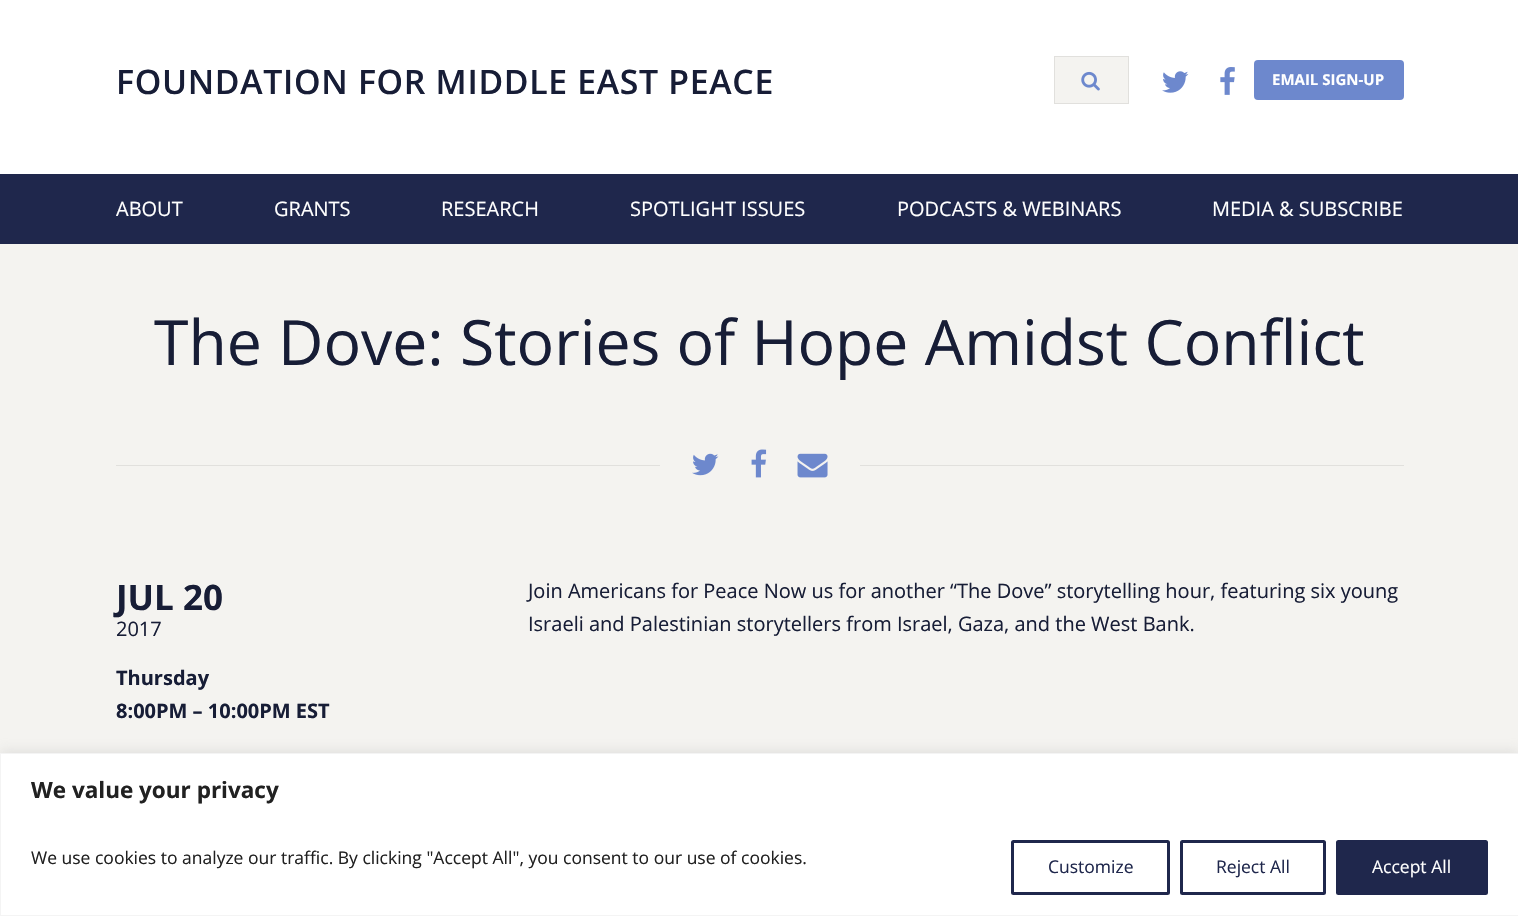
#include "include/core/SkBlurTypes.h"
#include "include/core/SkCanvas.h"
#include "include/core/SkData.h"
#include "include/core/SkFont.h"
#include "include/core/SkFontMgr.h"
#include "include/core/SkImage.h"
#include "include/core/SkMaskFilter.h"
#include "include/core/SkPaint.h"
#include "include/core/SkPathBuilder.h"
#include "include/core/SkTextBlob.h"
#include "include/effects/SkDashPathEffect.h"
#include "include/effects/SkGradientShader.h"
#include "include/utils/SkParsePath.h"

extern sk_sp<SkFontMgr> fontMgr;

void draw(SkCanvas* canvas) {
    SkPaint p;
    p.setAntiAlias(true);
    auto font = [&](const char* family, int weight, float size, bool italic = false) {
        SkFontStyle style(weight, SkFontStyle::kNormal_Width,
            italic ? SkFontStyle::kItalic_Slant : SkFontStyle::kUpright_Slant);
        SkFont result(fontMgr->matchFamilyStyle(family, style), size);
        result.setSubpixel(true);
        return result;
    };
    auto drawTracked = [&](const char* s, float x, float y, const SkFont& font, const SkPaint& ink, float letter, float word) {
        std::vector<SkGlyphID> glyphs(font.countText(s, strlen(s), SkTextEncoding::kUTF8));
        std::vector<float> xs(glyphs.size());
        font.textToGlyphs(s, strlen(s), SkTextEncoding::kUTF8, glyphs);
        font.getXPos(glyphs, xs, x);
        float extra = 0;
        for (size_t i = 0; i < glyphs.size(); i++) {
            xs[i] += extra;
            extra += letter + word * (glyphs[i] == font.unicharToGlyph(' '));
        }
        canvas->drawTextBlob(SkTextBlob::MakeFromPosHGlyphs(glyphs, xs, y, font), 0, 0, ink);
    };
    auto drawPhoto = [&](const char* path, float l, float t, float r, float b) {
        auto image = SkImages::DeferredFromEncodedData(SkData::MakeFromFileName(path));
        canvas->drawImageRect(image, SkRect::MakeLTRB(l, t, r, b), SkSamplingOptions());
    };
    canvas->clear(0xFF1F274C);
    p.setColor(0xFFFFFFFF);
    canvas->drawRect(SkRect::MakeLTRB(0, 0, 1518, 174), p);
    auto font1 = font("Open Sans", 600, 33.75f);
    p.setColor(0xFF171D36);
    drawTracked("FOUNDATION FOR MIDDLE EAST PEACE", 116, 94, font1, p, 0.7f, 0);
    p.setColor(0xFFF4F3F0);
    canvas->drawRect(SkRect::MakeLTRB(1054.5f, 56.5f, 1128.5f, 103.5f), p);
    p.setStyle(SkPaint::kStroke_Style);
    p.setStrokeWidth(1);
    p.setColor(0xFFE1E0DD);
    canvas->drawRect(SkRect::MakeLTRB(1054.5f, 56.5f, 1128.5f, 103.5f), p);
    drawPhoto("media/1.png", 1081, 71, 1100, 91);
    drawPhoto("media/2.png", 1162, 71, 1189, 93);
    drawPhoto("media/3.png", 1220, 67, 1235, 95);
    p.setStyle(SkPaint::kFill_Style);
    p.setColor(0xFF6D88CD);
    canvas->drawRoundRect(SkRect::MakeLTRB(1254, 60, 1404, 100), 4, 4, p);
    auto font2 = font("Open Sans", 700, 15);
    p.setColor(0xFFFFFFFF);
    canvas->drawString("EMAIL SIGN-UP", 1272, 85, font2, p);
    auto font3 = font("Open Sans", 400, 20);
    {
        const struct { const char* s; float x, y; } items[] = {
            {"ABOUT", 116, 216},
            {"GRANTS", 274, 216},
            {"RESEARCH", 441, 216},
            {"SPOTLIGHT ISSUES", 630, 216},
            {"PODCASTS & WEBINARS", 897, 216},
            {"MEDIA & SUBSCRIBE", 1212, 216},
        };
        for (auto [s, x, y] : items) {
            canvas->drawString(s, x, y, font3, p);
        }
    }
    p.setColor(0xFFF4F3F0);
    canvas->drawRect(SkRect::MakeLTRB(0, 244, 1518, 753), p);
    auto font4 = font("Open Sans", 400, 62.5f);
    p.setColor(0xFF171D36);
    canvas->drawString("The Dove: Stories of Hope Amidst Conflict", 154, 365, font4, p);
    p.setColor(0xFFE1E0DD);
    canvas->drawRect(SkRect::MakeLTRB(116, 465, 660, 466), p);
    drawPhoto("media/4.png", 692, 453, 719, 476);
    drawPhoto("media/5.png", 751, 449, 767, 478);
    drawPhoto("media/6.png", 797, 453, 828, 478);
    canvas->drawRect(SkRect::MakeLTRB(860, 465, 1404, 466), p);
    auto font5 = font("Open Sans", 700, 35);
    p.setColor(0xFF171D36);
    canvas->drawString("JUL 20", 116, 610, font5, p);
    canvas->drawString("2017", 116, 636, font3, p);
    auto font6 = font("Open Sans", 700, 20);
    canvas->drawString("Thursday", 116, 685, font6, p);
    canvas->drawString("8:00PM – 10:00PM EST", 116, 718, font6, p);
    canvas->drawString("Join Americans for Peace Now us for another “The Dove” storytelling hour, featuring six young", 528, 598, font3, p);
    canvas->drawString("Israeli and Palestinian storytellers from Israel, Gaza, and the West Bank.", 528, 631, font3, p);
    p.setColor(0x4DACABAB);
    p.setMaskFilter(SkMaskFilter::MakeBlur(kNormal_SkBlurStyle, 6));
    canvas->drawRect(SkRect::MakeLTRB(0, 751, 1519, 915), p);
    p.setMaskFilter(nullptr);
    p.setColor(0xFFFFFFFF);
    canvas->drawRect(SkRect::MakeLTRB(0.5f, 753.5f, 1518.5f, 915.5f), p);
    p.setStyle(SkPaint::kStroke_Style);
    p.setColor(0xFFF4F4F4);
    canvas->drawRect(SkRect::MakeLTRB(0.5f, 753.5f, 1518.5f, 915.5f), p);
    auto font7 = font("Open Sans", 700, 22.5f);
    p.setStyle(SkPaint::kFill_Style);
    p.setColor(0xFF212121);
    canvas->drawString("We value your privacy", 31, 798, font7, p);
    auto font8 = font("Open Sans", 400, 17.5f);
    canvas->drawString("We use cookies to analyze our traffic. By clicking \"Accept All\", you consent to our use of cookies.", 31, 864, font8, p);
    p.setStyle(SkPaint::kStroke_Style);
    p.setStrokeWidth(3);
    p.setColor(0xFF1F274C);
    canvas->drawRoundRect(SkRect::MakeLTRB(1012.5f, 841.5f, 1168.5f, 893.5f), 1, 1, p);
    p.setStyle(SkPaint::kFill_Style);
    canvas->drawString("Customize", 1048, 873, font8, p);
    p.setStyle(SkPaint::kStroke_Style);
    canvas->drawRoundRect(SkRect::MakeLTRB(1181.5f, 841.5f, 1324.5f, 893.5f), 1, 1, p);
    p.setStyle(SkPaint::kFill_Style);
    canvas->drawString("Reject All", 1216, 873, font8, p);
    canvas->drawRoundRect(SkRect::MakeLTRB(1337.5f, 841.5f, 1486.5f, 893.5f), 1, 1, p);
    p.setStyle(SkPaint::kStroke_Style);
    canvas->drawRoundRect(SkRect::MakeLTRB(1337.5f, 841.5f, 1486.5f, 893.5f), 1, 1, p);
    p.setStyle(SkPaint::kFill_Style);
    p.setColor(0xFFFFFFFF);
    canvas->drawString("Accept All", 1372, 873, font8, p);
}
